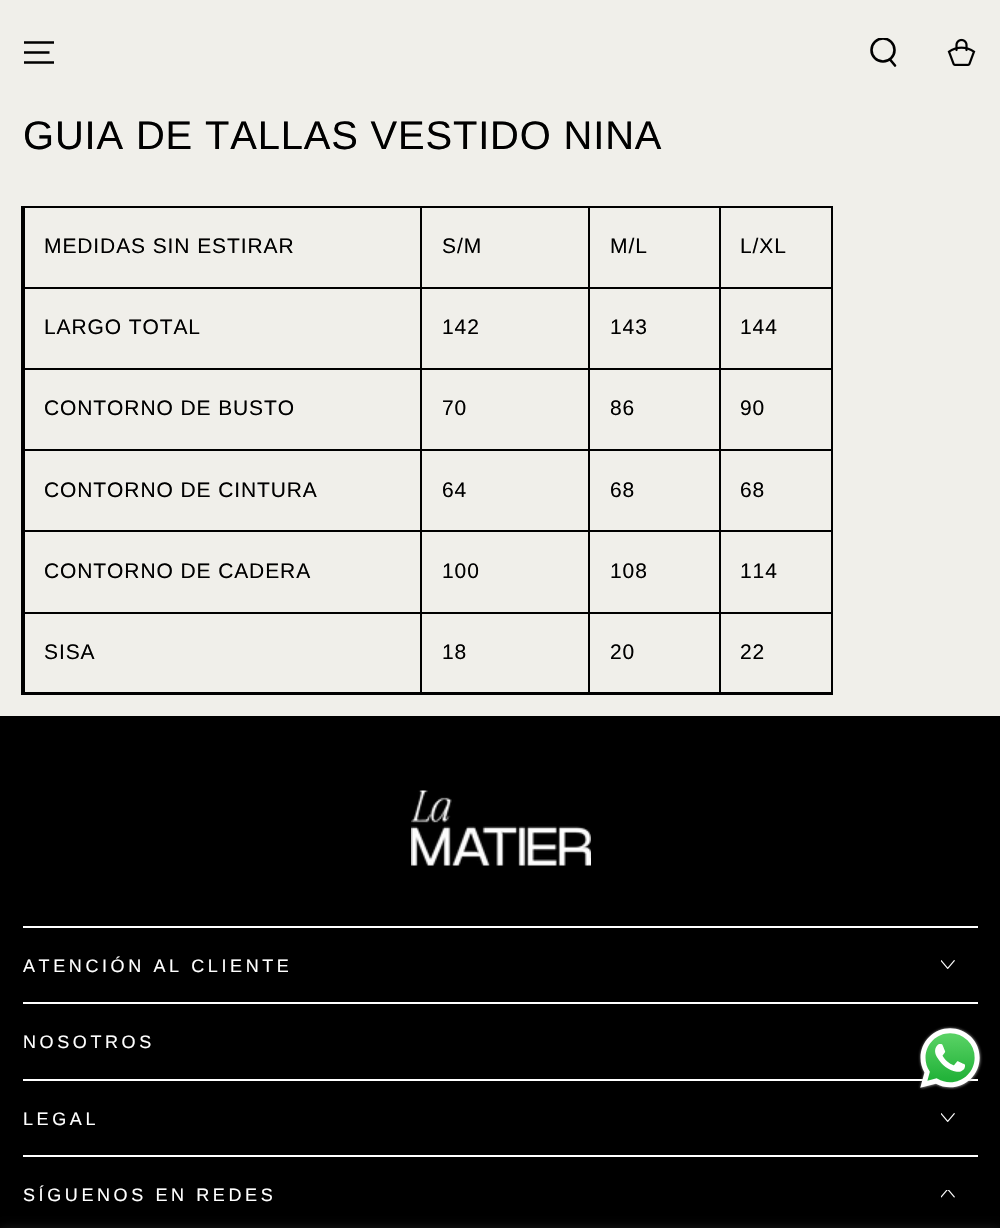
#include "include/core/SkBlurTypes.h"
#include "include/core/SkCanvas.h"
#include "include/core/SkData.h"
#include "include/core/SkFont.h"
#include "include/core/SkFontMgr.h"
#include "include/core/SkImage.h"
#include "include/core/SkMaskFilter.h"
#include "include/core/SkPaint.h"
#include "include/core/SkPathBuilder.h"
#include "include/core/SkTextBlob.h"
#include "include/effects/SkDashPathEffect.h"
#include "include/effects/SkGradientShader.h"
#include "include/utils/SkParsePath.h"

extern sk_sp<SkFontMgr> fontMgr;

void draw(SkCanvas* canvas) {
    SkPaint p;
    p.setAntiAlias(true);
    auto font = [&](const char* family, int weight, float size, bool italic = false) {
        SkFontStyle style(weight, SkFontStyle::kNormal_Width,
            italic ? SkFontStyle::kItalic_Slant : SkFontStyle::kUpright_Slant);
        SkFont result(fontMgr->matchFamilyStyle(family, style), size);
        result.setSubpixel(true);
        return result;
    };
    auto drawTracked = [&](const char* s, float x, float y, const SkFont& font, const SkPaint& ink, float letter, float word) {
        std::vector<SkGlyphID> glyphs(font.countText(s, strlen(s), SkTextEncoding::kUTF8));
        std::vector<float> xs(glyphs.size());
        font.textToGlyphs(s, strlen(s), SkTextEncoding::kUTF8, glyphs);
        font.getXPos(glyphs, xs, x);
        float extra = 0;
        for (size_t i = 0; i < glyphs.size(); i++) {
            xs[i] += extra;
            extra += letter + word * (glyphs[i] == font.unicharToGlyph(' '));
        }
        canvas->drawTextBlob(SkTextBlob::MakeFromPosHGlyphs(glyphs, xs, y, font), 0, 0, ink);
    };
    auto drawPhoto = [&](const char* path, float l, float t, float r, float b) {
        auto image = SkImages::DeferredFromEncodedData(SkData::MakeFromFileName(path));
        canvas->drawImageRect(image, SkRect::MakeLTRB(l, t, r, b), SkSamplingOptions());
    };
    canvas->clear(0xFFF0EFEA);
    p.setStyle(SkPaint::kStroke_Style);
    p.setStrokeWidth(2.4f);
    p.setColor(0xFF000000);
    canvas->drawPath(SkPathBuilder().moveTo(24, 62.5f).lineTo(54, 62.5f).moveTo(24, 52.5f).lineTo(49.5f, 52.5f).moveTo(24, 42.5f).lineTo(54, 42.5f).detach(), p);
    canvas->save();
    canvas->clipRect(SkRect::MakeLTRB(869, 38, 899, 68));
    p.setStrokeWidth(2.6f);
    canvas->drawCircle(883, 50, 11.5f, p);
    canvas->restore();
    p.setStrokeCap(SkPaint::kRound_Cap);
    canvas->drawPath(SkPathBuilder().moveTo(890, 59.5f).lineTo(895, 65.5f).detach(), p);
    drawPhoto("media/1.png", 947, 38, 976, 66);
    auto font1 = font("Liberation Sans", 400, 39.9f);
    p.setStyle(SkPaint::kFill_Style);
    drawTracked("GUIA DE TALLAS VESTIDO NINA", 23, 149, font1, p, 0.85f, 0);
    p.setStyle(SkPaint::kStroke_Style);
    p.setStrokeWidth(2);
    p.setStrokeCap(SkPaint::kButt_Cap);
    canvas->drawRect(SkRect::MakeLTRB(22, 207, 832, 694), p);
    auto font2 = font("Liberation Sans", 400, 21);
    p.setStyle(SkPaint::kFill_Style);
    drawTracked("MEDIDAS SIN ESTIRAR", 44, 253, font2, p, 0.9f, 0);
    {
        const struct { float l, t, r, b; SkColor color; } items[] = {
            {719, 287, 833, 289, 0xFF000000},
            {719, 368, 833, 370, 0xFF000000},
            {719, 449, 833, 451, 0xFF000000},
            {719, 530, 833, 532, 0xFF000000},
            {719, 612, 833, 614, 0xFF000000},
            {719, 692, 833, 693, 0xFF000000},
            {719, 612, 721, 693, 0xFF000000},
            {588, 612, 720, 614, 0xFF000000},
            {719, 530, 721, 614, 0xFF000000},
            {588, 530, 720, 532, 0xFF000000},
            {719, 449, 721, 531, 0xFF000000},
            {588, 449, 720, 451, 0xFF000000},
            {719, 368, 721, 450, 0xFF000000},
            {588, 368, 720, 370, 0xFF000000},
            {719, 287, 721, 369, 0xFF000000},
            {588, 287, 720, 289, 0xFF000000},
            {588, 692, 720, 693, 0xFF000000},
            {588, 612, 590, 693, 0xFF000000},
            {420, 612, 590, 614, 0xFF000000},
            {588, 530, 590, 614, 0xFF000000},
            {420, 530, 590, 532, 0xFF000000},
            {588, 449, 590, 531, 0xFF000000},
            {420, 449, 590, 451, 0xFF000000},
            {588, 368, 590, 450, 0xFF000000},
            {420, 368, 590, 370, 0xFF000000},
            {588, 287, 590, 369, 0xFF000000},
            {420, 287, 590, 289, 0xFF000000},
            {420, 692, 590, 693, 0xFF000000},
            {420, 612, 422, 693, 0xFF000000},
            {23, 612, 422, 614, 0xFF000000},
            {420, 530, 422, 614, 0xFF000000},
            {23, 530, 422, 532, 0xFF000000},
            {420, 449, 422, 531, 0xFF000000},
            {23, 449, 422, 451, 0xFF000000},
            {420, 368, 422, 450, 0xFF000000},
            {23, 368, 422, 370, 0xFF000000},
            {420, 287, 422, 369, 0xFF000000},
            {23, 287, 422, 289, 0xFF000000},
            {420, 206, 422, 288, 0xFF000000},
        };
        for (auto [l, t, r, b, color] : items) {
            p.setColor(color);
            canvas->drawRect(SkRect::MakeLTRB(l, t, r, b), p);
        }
    }
    drawTracked("S/M", 442, 253, font2, p, 0.9f, 0);
    canvas->drawRect(SkRect::MakeLTRB(588, 206, 590, 288), p);
    drawTracked("M/L", 610, 253, font2, p, 0.9f, 0);
    canvas->drawRect(SkRect::MakeLTRB(719, 206, 721, 288), p);
    drawTracked("L/XL", 740, 253, font2, p, 0.9f, 0);
    {
        const struct { float l, t, r, b; SkColor color; } items[] = {
            {23, 692, 422, 693, 0xFF000000},
            {23, 612, 25, 693, 0xFF000000},
            {23, 530, 25, 614, 0xFF000000},
            {23, 449, 25, 531, 0xFF000000},
            {23, 368, 25, 450, 0xFF000000},
            {23, 206, 25, 369, 0xFF000000},
        };
        for (auto [l, t, r, b, color] : items) {
            p.setColor(color);
            canvas->drawRect(SkRect::MakeLTRB(l, t, r, b), p);
        }
    }
    {
        const struct { const char* s; float x, y; } items[] = {
            {"LARGO TOTAL", 44, 334},
            {"142", 442, 334},
            {"143", 610, 334},
            {"144", 740, 334},
            {"CONTORNO DE BUSTO", 44, 415},
            {"70", 442, 415},
            {"86", 610, 415},
            {"90", 740, 415},
            {"CONTORNO DE CINTURA", 44, 497},
            {"64", 442, 497},
            {"68", 610, 497},
            {"68", 740, 497},
            {"CONTORNO DE CADERA", 44, 578},
            {"100", 442, 578},
            {"108", 610, 578},
            {"114", 740, 578},
            {"SISA", 44, 659},
            {"18", 442, 659},
            {"20", 610, 659},
            {"22", 740, 659},
        };
        for (auto [s, x, y] : items) {
            drawTracked(s, x, y, font2, p, 0.9f, 0);
        }
    }
    canvas->drawRect(SkRect::MakeLTRB(0, 716, 1000, 1228), p);
    p.setColor(0xFFFFFFFF);
    canvas->drawRect(SkRect::MakeLTRB(23, 926, 978, 928), p);
    drawPhoto("media/2.png", 411, 790, 591, 866);
    canvas->drawRect(SkRect::MakeLTRB(23, 1002, 978, 1004), p);
    auto font3 = font("Liberation Sans", 400, 18);
    drawTracked("ATENCIÓN AL CLIENTE", 23, 972, font3, p, 3.6f, 0);
    drawPhoto("media/3.png", 941, 960, 955, 969);
    canvas->drawRect(SkRect::MakeLTRB(23, 1079, 978, 1081), p);
    drawTracked("NOSOTROS", 23, 1048, font3, p, 3.6f, 0);
    canvas->drawRect(SkRect::MakeLTRB(23, 1155, 978, 1157), p);
    drawTracked("LEGAL", 23, 1125, font3, p, 3.6f, 0);
    drawPhoto("media/3.png", 941, 1113, 955, 1122);
    drawTracked("SÍGUENOS EN REDES", 23, 1201, font3, p, 3.6f, 0);
    drawPhoto("media/4.png", 941, 1190, 955, 1198);
    drawPhoto("media/5.png", 918, 1026, 983, 1090);
    p.setColor(0x26FFFFFF);
    p.setMaskFilter(SkMaskFilter::MakeBlur(kNormal_SkBlurStyle, 6));
    canvas->drawRect(SkRect::MakeLTRB(0, 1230, 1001, 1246), p);
    p.setMaskFilter(nullptr);
}
